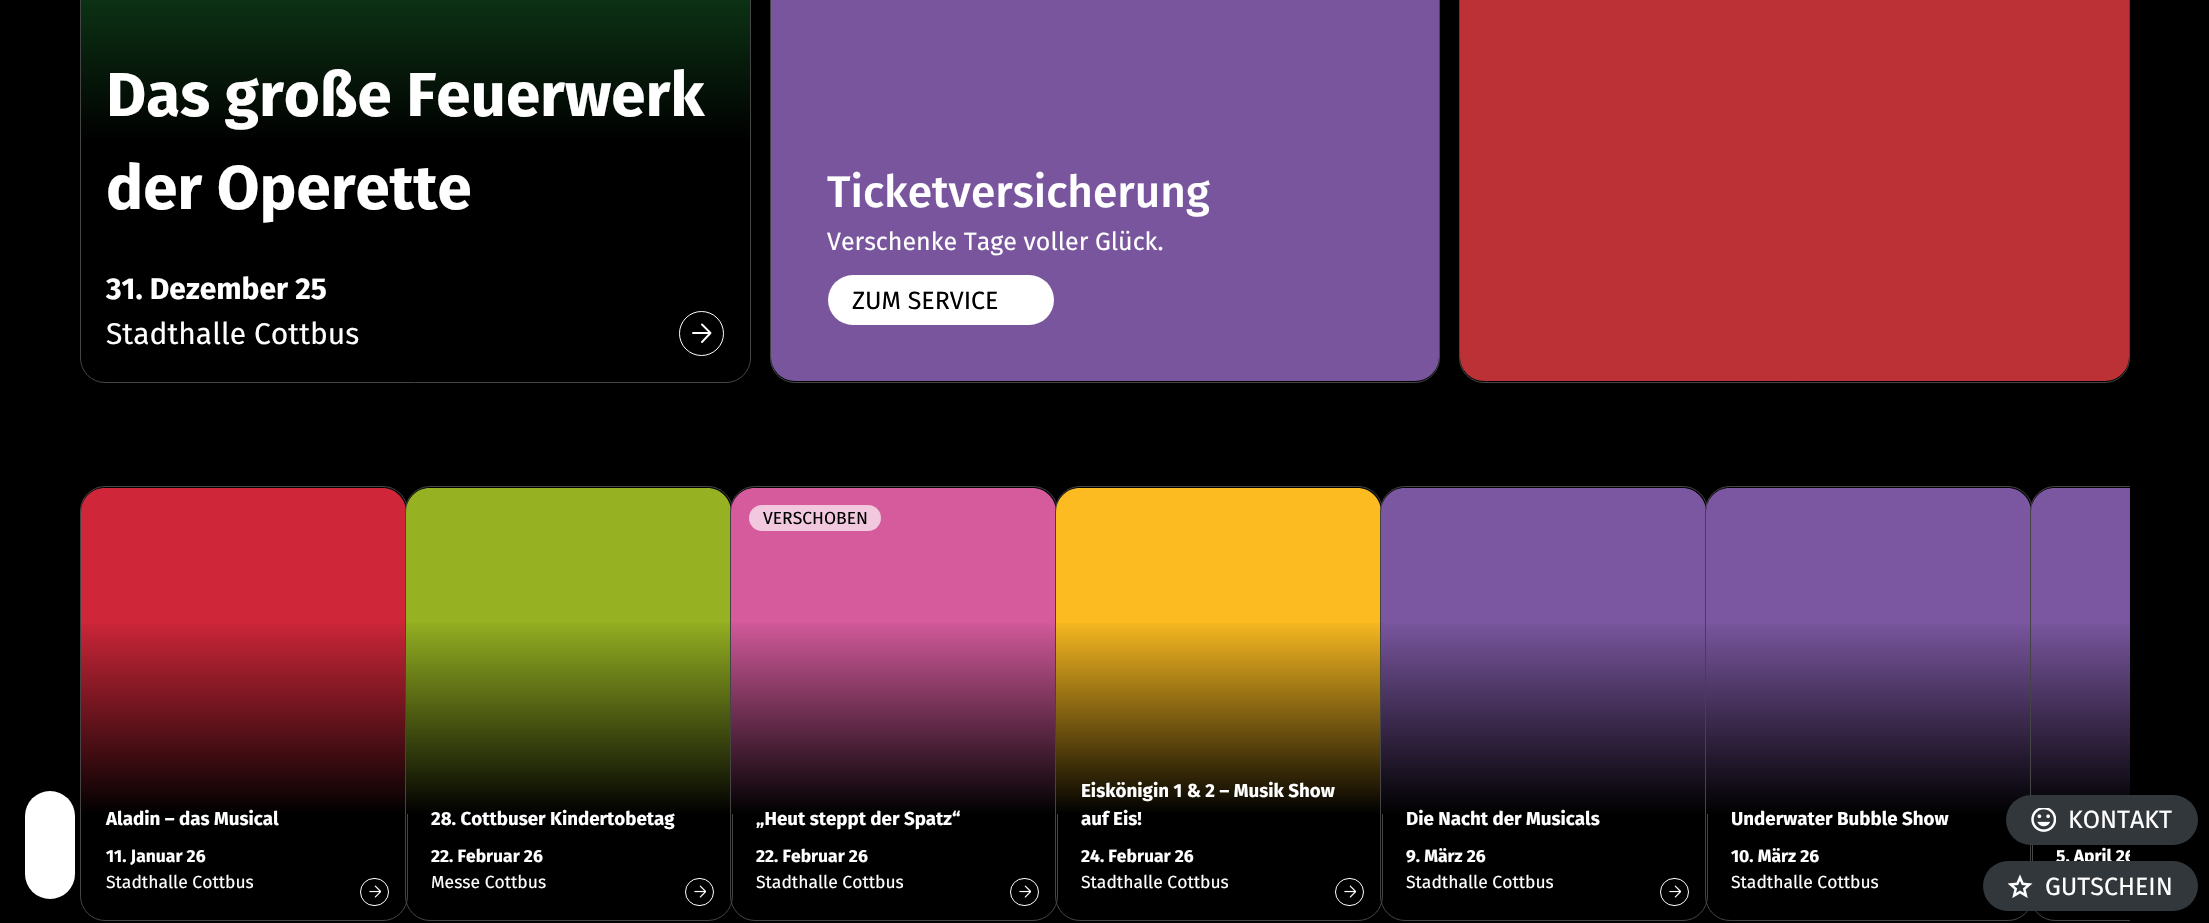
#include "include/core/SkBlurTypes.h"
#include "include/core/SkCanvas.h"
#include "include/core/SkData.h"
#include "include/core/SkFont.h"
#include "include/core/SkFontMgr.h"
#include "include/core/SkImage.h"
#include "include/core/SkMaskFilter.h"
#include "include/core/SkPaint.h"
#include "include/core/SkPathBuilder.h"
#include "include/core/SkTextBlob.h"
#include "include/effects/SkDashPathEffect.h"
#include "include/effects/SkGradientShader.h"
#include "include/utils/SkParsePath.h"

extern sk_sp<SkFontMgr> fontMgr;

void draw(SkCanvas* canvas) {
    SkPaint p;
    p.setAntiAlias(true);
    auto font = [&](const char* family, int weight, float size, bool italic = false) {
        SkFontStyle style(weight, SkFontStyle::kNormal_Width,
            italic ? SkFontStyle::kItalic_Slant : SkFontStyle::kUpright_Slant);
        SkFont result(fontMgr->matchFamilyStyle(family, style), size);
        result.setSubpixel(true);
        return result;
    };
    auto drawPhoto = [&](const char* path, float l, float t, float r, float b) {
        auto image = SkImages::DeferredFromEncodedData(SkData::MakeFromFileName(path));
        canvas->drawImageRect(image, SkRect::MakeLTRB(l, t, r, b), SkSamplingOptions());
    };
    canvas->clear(0xFF000000);
    p.setColor(0xFFFFFFFF);
    canvas->drawRoundRect(SkRect::MakeLTRB(25, 791, 75, 899), 25, 25, p);
    p.setStyle(SkPaint::kStroke_Style);
    p.setStrokeWidth(1);
    p.setColor(0xFF444444);
    canvas->drawRoundRect(SkRect::MakeLTRB(80.5f, -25.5f, 750.5f, 382.5f), 24.5f, 24.5f, p);
    p.setStyle(SkPaint::kFill_Style);
    p.setColor(0xFF218D37);
    canvas->drawRect(SkRect::MakeLTRB(81, 0, 750, 138), p);
    {
        const SkColor colors[] = {0x00000000, 0xFF000000};
        const float stops[] = {0.4f, 1};
        const SkPoint ends[] = {{416, -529}, {416, 140}};
        p.setShader(SkGradientShader::MakeLinear(ends, colors, stops, 2, SkTileMode::kClamp));
        p.setAlpha(255);
    }
    canvas->drawRect(SkRect::MakeLTRB(81, 0, 750, 138), p);
    auto font1 = font("Fira Sans", 700, 61.9f);
    p.setShader(nullptr);
    p.setColor(0xFFFFFFFF);
    canvas->drawString("Das große Feuerwerk", 106, 116, font1, p);
    canvas->drawString("der Operette", 106, 209, font1, p);
    auto font2 = font("Fira Sans", 700, 30);
    canvas->drawString("31. Dezember 25", 106, 299, font2, p);
    auto font3 = font("Fira Sans", 400, 30);
    canvas->drawString("Stadthalle Cottbus", 106, 344, font3, p);
    p.setStyle(SkPaint::kStroke_Style);
    p.setStrokeWidth(1.9f);
    p.setStrokeCap(SkPaint::kRound_Cap);
    p.setStrokeJoin(SkPaint::kRound_Join);
    canvas->drawPath(SkPathBuilder().moveTo(693, 333).lineTo(710.5f, 333).moveTo(710.5f, 333).lineTo(702, 324.5f).moveTo(710.5f, 333).lineTo(702, 342).detach(), p);
    p.setStrokeWidth(1);
    p.setStrokeCap(SkPaint::kButt_Cap);
    p.setStrokeJoin(SkPaint::kMiter_Join);
    canvas->drawCircle(701.5f, 333.5f, 22, p);
    p.setColor(0xFF444444);
    canvas->drawRoundRect(SkRect::MakeLTRB(770.5f, -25.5f, 1439.5f, 382.5f), 24.5f, 24.5f, p);
    p.setStyle(SkPaint::kFill_Style);
    p.setColor(0xFF79559E);
    canvas->drawRoundRect(SkRect::MakeLTRB(771, -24, 1439, 381), 24, 24, p);
    auto font4 = font("Fira Sans", 500, 44.25f);
    p.setColor(0xFFFFFFFF);
    canvas->drawString("Ticketversicherung", 827, 207, font4, p);
    auto font5 = font("Fira Sans", 400, 25);
    canvas->drawString("Verschenke Tage voller Glück.", 827, 250, font5, p);
    canvas->drawRoundRect(SkRect::MakeLTRB(828, 275, 1054, 325), 25, 25, p);
    p.setColor(0xFF000000);
    canvas->drawString("ZUM SERVICE", 852, 309, font5, p);
    p.setStyle(SkPaint::kStroke_Style);
    p.setColor(0xFF444444);
    canvas->drawRoundRect(SkRect::MakeLTRB(1459.5f, -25.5f, 2129.5f, 382.5f), 24.5f, 24.5f, p);
    p.setStyle(SkPaint::kFill_Style);
    p.setColor(0xFFBB3136);
    canvas->drawRoundRect(SkRect::MakeLTRB(1460, -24, 2129, 381), 24, 24, p);
    p.setStyle(SkPaint::kStroke_Style);
    p.setColor(0xFF444444);
    canvas->drawRoundRect(SkRect::MakeLTRB(80.5f, 486.5f, 407.5f, 920.5f), 24.5f, 24.5f, p);
    p.setStyle(SkPaint::kFill_Style);
    p.setColor(0xFFD02639);
    canvas->drawPath(SkPathBuilder().moveTo(105, 488).lineTo(382, 488).cubicTo(395.5f, 488, 406, 498.5f, 406, 512).lineTo(406, 813).lineTo(81, 813).lineTo(81, 512).cubicTo(81, 498.5f, 91.5f, 488, 105, 488).close().detach(), p);
    {
        const SkColor colors[] = {0x00000000, 0xFF000000};
        const float stops[] = {0.4f, 1};
        const SkPoint ends[] = {{244, 488}, {244, 814}};
        p.setShader(SkGradientShader::MakeLinear(ends, colors, stops, 2, SkTileMode::kClamp));
        p.setAlpha(255);
    }
    canvas->drawRect(SkRect::MakeLTRB(81, 623, 405, 813), p);
    auto font6 = font("Fira Sans", 700, 18.75f);
    p.setShader(nullptr);
    p.setColor(0xFFFFFFFF);
    canvas->drawString("Aladin – das Musical", 106, 825, font6, p);
    auto font7 = font("Fira Sans", 700, 17.5f);
    canvas->drawString("11. Januar 26", 106, 862, font7, p);
    auto font8 = font("Fira Sans", 400, 17.5f);
    canvas->drawString("Stadthalle Cottbus", 106, 888, font8, p);
    drawPhoto("media/1.png", 369, 885, 381, 898);
    p.setStyle(SkPaint::kStroke_Style);
    canvas->drawRoundRect(SkRect::MakeLTRB(360.5f, 878.5f, 388.5f, 905.5f), 13.5f, 13.5f, p);
    p.setColor(0xFF444444);
    canvas->drawRoundRect(SkRect::MakeLTRB(405.5f, 486.5f, 732.5f, 920.5f), 24.5f, 24.5f, p);
    p.setStyle(SkPaint::kFill_Style);
    p.setColor(0xFF96B222);
    canvas->drawPath(SkPathBuilder().moveTo(430, 488).lineTo(707, 488).cubicTo(720.5f, 488, 731, 498.5f, 731, 512).lineTo(731, 813).lineTo(406, 813).lineTo(406, 512).cubicTo(406, 498.5f, 416.5f, 488, 430, 488).close().detach(), p);
    {
        const SkColor colors[] = {0x00000000, 0xFF000000};
        const float stops[] = {0.4f, 1};
        const SkPoint ends[] = {{569, 488}, {569, 814}};
        p.setShader(SkGradientShader::MakeLinear(ends, colors, stops, 2, SkTileMode::kClamp));
        p.setAlpha(255);
    }
    canvas->drawRect(SkRect::MakeLTRB(406, 623, 730, 814), p);
    p.setShader(nullptr);
    p.setColor(0xFFFFFFFF);
    canvas->drawString("28. Cottbuser Kindertobetag", 431, 825, font6, p);
    canvas->drawString("22. Februar 26", 431, 862, font7, p);
    canvas->drawString("Messe Cottbus", 431, 888, font8, p);
    drawPhoto("media/1.png", 694, 885, 706, 898);
    p.setStyle(SkPaint::kStroke_Style);
    canvas->drawRoundRect(SkRect::MakeLTRB(685.5f, 878.5f, 713.5f, 905.5f), 13.5f, 13.5f, p);
    p.setColor(0xFF444444);
    canvas->drawRoundRect(SkRect::MakeLTRB(730.5f, 486.5f, 1057.5f, 920.5f), 24.5f, 24.5f, p);
    p.setStyle(SkPaint::kFill_Style);
    p.setColor(0xFFD55B9D);
    canvas->drawPath(SkPathBuilder().moveTo(755, 488).lineTo(1032, 488).cubicTo(1045.5f, 488, 1056, 498.5f, 1056, 512).lineTo(1056, 813).lineTo(731, 813).lineTo(731, 512).cubicTo(731, 498.5f, 741.5f, 488, 755, 488).close().detach(), p);
    {
        const SkColor colors[] = {0x00000000, 0xFF000000};
        const float stops[] = {0.4f, 1};
        const SkPoint ends[] = {{894, 488}, {894, 814}};
        p.setShader(SkGradientShader::MakeLinear(ends, colors, stops, 2, SkTileMode::kClamp));
        p.setAlpha(255);
    }
    canvas->drawRect(SkRect::MakeLTRB(731, 623, 1055, 814), p);
    p.setShader(nullptr);
    p.setColor(0xFFF1C8DE);
    canvas->drawRoundRect(SkRect::MakeLTRB(749, 505, 881, 531), 13, 13, p);
    p.setColor(0xFF000000);
    canvas->drawString("VERSCHOBEN", 763, 524, font8, p);
    p.setColor(0xFFFFFFFF);
    canvas->drawString("„Heut steppt der Spatz“", 756, 825, font6, p);
    canvas->drawString("22. Februar 26", 756, 862, font7, p);
    canvas->drawString("Stadthalle Cottbus", 756, 888, font8, p);
    drawPhoto("media/1.png", 1019, 885, 1031, 898);
    p.setStyle(SkPaint::kStroke_Style);
    canvas->drawRoundRect(SkRect::MakeLTRB(1010.5f, 878.5f, 1038.5f, 905.5f), 13.5f, 13.5f, p);
    p.setColor(0xFF444444);
    canvas->drawRoundRect(SkRect::MakeLTRB(1055.5f, 486.5f, 1382.5f, 920.5f), 24.5f, 24.5f, p);
    p.setStyle(SkPaint::kFill_Style);
    p.setColor(0xFFFBBB21);
    canvas->drawPath(SkPathBuilder().moveTo(1080, 488).lineTo(1357, 488).cubicTo(1370.5f, 488, 1381, 498.5f, 1381, 512).lineTo(1381, 813).lineTo(1056, 813).lineTo(1056, 512).cubicTo(1056, 498.5f, 1066.5f, 488, 1080, 488).close().detach(), p);
    {
        const SkColor colors[] = {0x00000000, 0xFF000000};
        const float stops[] = {0.4f, 1};
        const SkPoint ends[] = {{1219, 488}, {1219, 814}};
        p.setShader(SkGradientShader::MakeLinear(ends, colors, stops, 2, SkTileMode::kClamp));
        p.setAlpha(255);
    }
    canvas->drawRect(SkRect::MakeLTRB(1056, 623, 1380, 814), p);
    p.setShader(nullptr);
    p.setColor(0xFFFFFFFF);
    canvas->drawString("Eiskönigin 1 & 2 – Musik Show", 1081, 797, font6, p);
    canvas->drawString("auf Eis!", 1081, 825, font6, p);
    canvas->drawString("24. Februar 26", 1081, 862, font7, p);
    canvas->drawString("Stadthalle Cottbus", 1081, 888, font8, p);
    drawPhoto("media/1.png", 1344, 885, 1356, 898);
    p.setStyle(SkPaint::kStroke_Style);
    canvas->drawRoundRect(SkRect::MakeLTRB(1335.5f, 878.5f, 1363.5f, 905.5f), 13.5f, 13.5f, p);
    p.setColor(0xFF444444);
    canvas->drawRoundRect(SkRect::MakeLTRB(1380.5f, 486.5f, 1707.5f, 920.5f), 24.5f, 24.5f, p);
    p.setStyle(SkPaint::kFill_Style);
    p.setColor(0xFF7B57A1);
    canvas->drawPath(SkPathBuilder().moveTo(1405, 488).lineTo(1682, 488).cubicTo(1695.5f, 488, 1706, 498.5f, 1706, 512).lineTo(1706, 813).lineTo(1381, 813).lineTo(1381, 512).cubicTo(1381, 498.5f, 1391.5f, 488, 1405, 488).close().detach(), p);
    {
        const SkColor colors[] = {0x00000000, 0xFF000000};
        const float stops[] = {0.4f, 1};
        const SkPoint ends[] = {{1544, 488}, {1544, 814}};
        p.setShader(SkGradientShader::MakeLinear(ends, colors, stops, 2, SkTileMode::kClamp));
        p.setAlpha(255);
    }
    canvas->drawRect(SkRect::MakeLTRB(1381, 623, 1705, 814), p);
    p.setShader(nullptr);
    p.setColor(0xFFFFFFFF);
    canvas->drawString("Die Nacht der Musicals", 1406, 825, font6, p);
    canvas->drawString("9. März 26", 1406, 862, font7, p);
    canvas->drawString("Stadthalle Cottbus", 1406, 888, font8, p);
    drawPhoto("media/1.png", 1669, 885, 1681, 898);
    p.setStyle(SkPaint::kStroke_Style);
    canvas->drawRoundRect(SkRect::MakeLTRB(1660.5f, 878.5f, 1688.5f, 905.5f), 13.5f, 13.5f, p);
    p.setColor(0xFF444444);
    canvas->drawRoundRect(SkRect::MakeLTRB(1705.5f, 486.5f, 2032.5f, 920.5f), 24.5f, 24.5f, p);
    p.setStyle(SkPaint::kFill_Style);
    p.setColor(0xFF7B57A1);
    canvas->drawPath(SkPathBuilder().moveTo(1730, 488).lineTo(2007, 488).cubicTo(2020.5f, 488, 2031, 498.5f, 2031, 512).lineTo(2031, 813).lineTo(1706, 813).lineTo(1706, 512).cubicTo(1706, 498.5f, 1716.5f, 488, 1730, 488).close().detach(), p);
    {
        const SkColor colors[] = {0x00000000, 0xFF000000};
        const float stops[] = {0.4f, 1};
        const SkPoint ends[] = {{1869, 488}, {1869, 814}};
        p.setShader(SkGradientShader::MakeLinear(ends, colors, stops, 2, SkTileMode::kClamp));
        p.setAlpha(255);
    }
    canvas->drawRect(SkRect::MakeLTRB(1706, 623, 2030, 814), p);
    p.setShader(nullptr);
    p.setColor(0xFFFFFFFF);
    canvas->drawString("Underwater Bubble Show", 1731, 825, font6, p);
    canvas->drawString("10. März 26", 1731, 862, font7, p);
    canvas->drawString("Stadthalle Cottbus", 1731, 888, font8, p);
    p.setStyle(SkPaint::kStroke_Style);
    canvas->drawRoundRect(SkRect::MakeLTRB(1985.5f, 878.5f, 2013.5f, 905.5f), 13.5f, 13.5f, p);
    canvas->save();
    canvas->clipRect(SkRect::MakeLTRB(80, 486, 2130, 923));
    p.setColor(0xFF444444);
    canvas->drawRoundRect(SkRect::MakeLTRB(2030.5f, 486.5f, 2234.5f, 920.5f), 24.5f, 24.5f, p);
    canvas->restore();
    p.setStyle(SkPaint::kFill_Style);
    p.setColor(0xFF7B57A1);
    canvas->drawPath(SkPathBuilder().moveTo(2055, 488).lineTo(2130, 488).lineTo(2130, 813).lineTo(2031, 813).lineTo(2031, 512).cubicTo(2031, 498.5f, 2041.5f, 488, 2055, 488).close().detach(), p);
    {
        const SkColor colors[] = {0x00000000, 0xFF000000};
        const float stops[] = {0.4f, 1};
        const SkPoint ends[] = {{2194, 488}, {2194, 814}};
        p.setShader(SkGradientShader::MakeLinear(ends, colors, stops, 2, SkTileMode::kClamp));
        p.setAlpha(255);
    }
    canvas->drawRect(SkRect::MakeLTRB(2031, 623, 2130, 795), p);
    canvas->save();
    canvas->clipRect(SkRect::MakeLTRB(2031, 488, 2130, 920));
    p.setShader(nullptr);
    p.setColor(0xFFFFFFFF);
    canvas->drawString("5. April 26", 2056, 862, font7, p);
    canvas->restore();
    p.setColor(0xFF32373C);
    canvas->drawRoundRect(SkRect::MakeLTRB(2006, 795, 2198, 845), 25, 25, p);
    drawPhoto("media/2.png", 2031, 808, 2056, 832);
    p.setColor(0xFFFFFFFF);
    canvas->drawString("KONTAKT", 2068, 828, font5, p);
    p.setColor(0xFF32373C);
    canvas->drawRoundRect(SkRect::MakeLTRB(1983, 861, 2198, 911), 25, 25, p);
    drawPhoto("media/3.png", 2008, 874, 2033, 898);
    p.setColor(0xFFFFFFFF);
    canvas->drawString("GUTSCHEIN", 2045, 895, font5, p);
}
